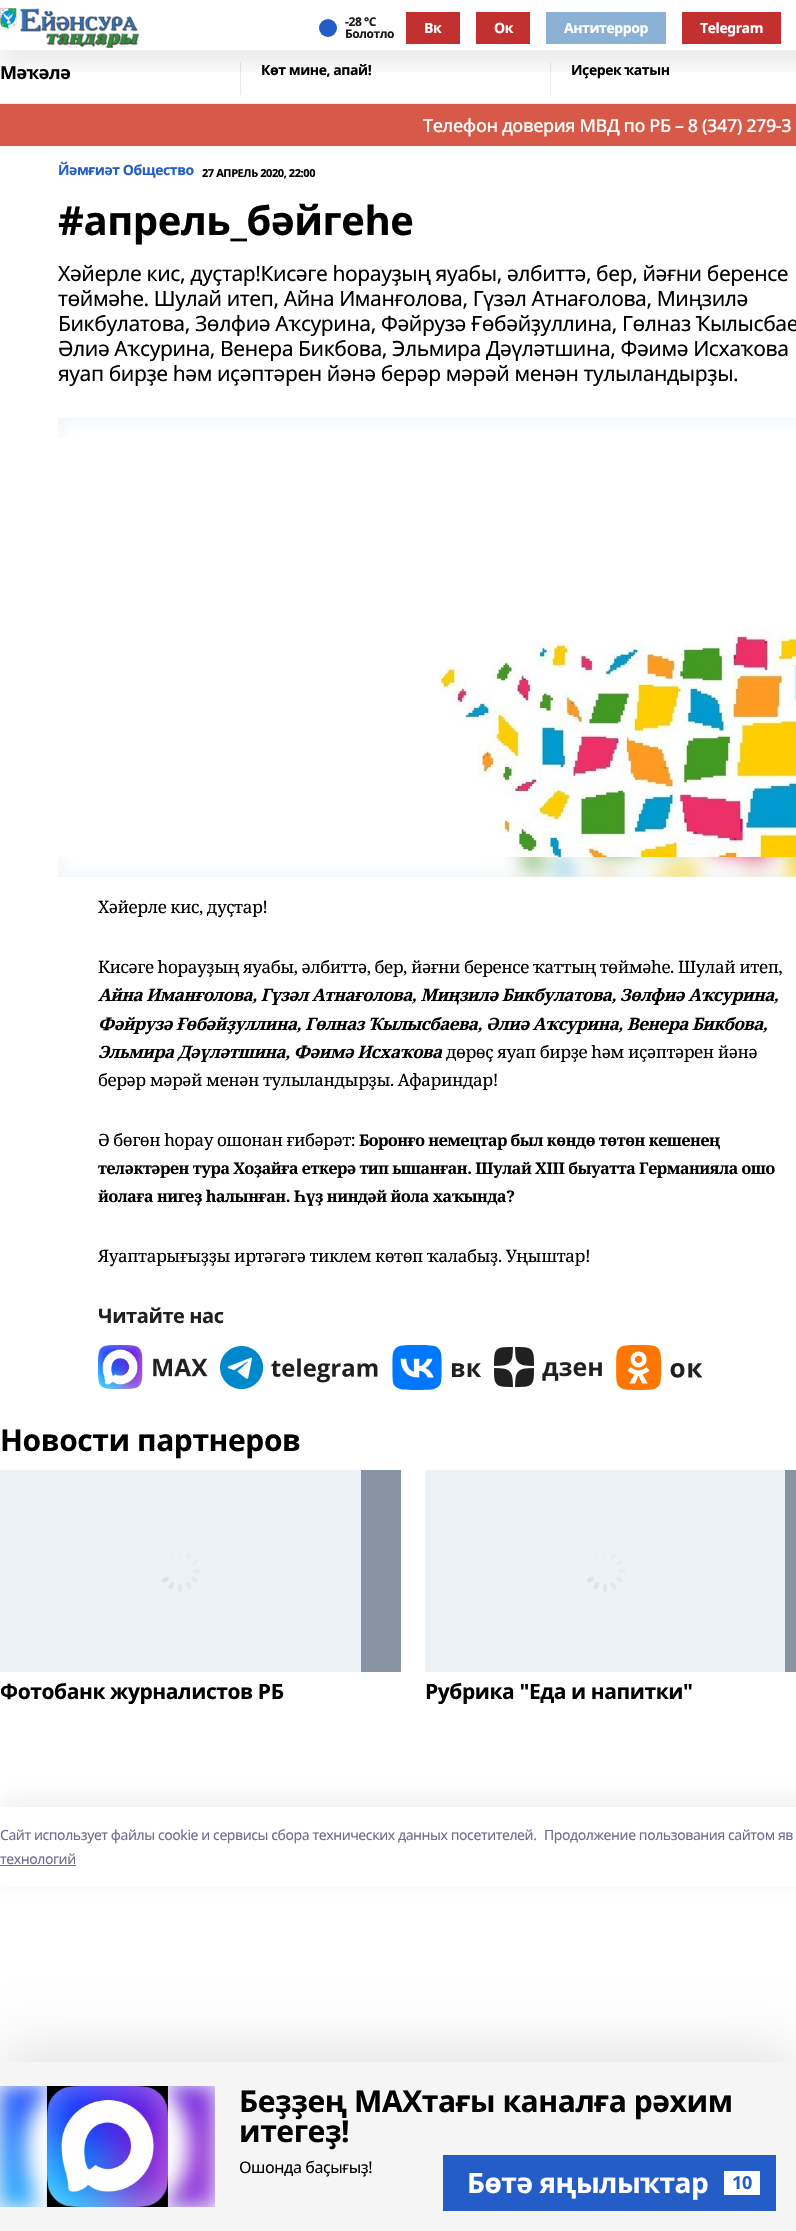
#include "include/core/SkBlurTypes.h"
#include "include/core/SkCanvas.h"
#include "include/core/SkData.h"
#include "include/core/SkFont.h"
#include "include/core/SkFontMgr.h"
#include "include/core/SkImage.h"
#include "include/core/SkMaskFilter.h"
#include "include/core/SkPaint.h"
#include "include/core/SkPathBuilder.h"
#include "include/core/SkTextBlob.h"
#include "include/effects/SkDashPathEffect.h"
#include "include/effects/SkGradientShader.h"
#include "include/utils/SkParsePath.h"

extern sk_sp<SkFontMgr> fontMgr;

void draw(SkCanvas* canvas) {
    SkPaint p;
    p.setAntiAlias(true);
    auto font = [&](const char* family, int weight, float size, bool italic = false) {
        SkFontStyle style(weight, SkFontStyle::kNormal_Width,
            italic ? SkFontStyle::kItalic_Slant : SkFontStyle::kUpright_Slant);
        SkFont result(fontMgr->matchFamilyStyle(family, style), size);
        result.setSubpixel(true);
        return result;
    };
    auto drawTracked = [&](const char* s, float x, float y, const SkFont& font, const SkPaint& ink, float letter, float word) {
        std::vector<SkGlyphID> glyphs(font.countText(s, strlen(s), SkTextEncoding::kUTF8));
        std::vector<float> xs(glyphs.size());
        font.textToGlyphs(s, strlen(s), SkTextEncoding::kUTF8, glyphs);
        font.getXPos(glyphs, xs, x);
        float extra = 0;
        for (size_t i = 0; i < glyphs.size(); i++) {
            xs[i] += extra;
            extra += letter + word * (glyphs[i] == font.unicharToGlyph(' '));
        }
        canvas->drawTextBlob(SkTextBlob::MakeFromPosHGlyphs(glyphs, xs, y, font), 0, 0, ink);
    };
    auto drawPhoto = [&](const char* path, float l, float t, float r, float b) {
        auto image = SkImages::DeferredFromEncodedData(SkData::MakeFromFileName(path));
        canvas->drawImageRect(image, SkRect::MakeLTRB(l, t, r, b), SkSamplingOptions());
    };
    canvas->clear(0xFFFFFFFF);
    p.setColor(0xFFEAEAEA);
    canvas->drawRect(SkRect::MakeLTRB(240, 62, 241, 95), p);
    canvas->drawRect(SkRect::MakeLTRB(550, 62, 551, 95), p);
    canvas->save();
    canvas->clipRect(SkRect::MakeLTRB(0, 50, 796, 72));
    p.setColor(0x14000000);
    p.setMaskFilter(SkMaskFilter::MakeBlur(kNormal_SkBlurStyle, 10));
    canvas->drawRect(SkRect::MakeLTRB(0, 15, 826, 65), p);
    p.setMaskFilter(nullptr);
    canvas->restore();
    drawPhoto("media/1.png", 0, 8, 140, 48);
    p.setColor(0xFF245DC7);
    canvas->drawCircle(328, 28, 9, p);
    auto font1 = font("Noto Sans", 700, 12);
    p.setColor(0xFF1A1A1A);
    drawTracked("-28 °С", 345, 26, font1, p, -0.42f, 0);
    drawTracked("Болотло", 345, 38, font1, p, -0.42f, 0);
    p.setColor(0xFFC23030);
    canvas->drawRect(SkRect::MakeLTRB(406, 12, 460, 44), p);
    auto font2 = font("Noto Sans", 700, 14);
    p.setColor(0xFFFFFFFF);
    drawTracked("Вк", 424, 33, font2, p, -0.42f, 0);
    p.setColor(0xFFC23030);
    canvas->drawRect(SkRect::MakeLTRB(476, 12, 530, 44), p);
    p.setColor(0xFFFFFFFF);
    drawTracked("Ок", 494, 33, font2, p, -0.42f, 0);
    p.setColor(0xFF8BB1D4);
    canvas->drawRect(SkRect::MakeLTRB(546, 12, 666, 44), p);
    p.setColor(0xFFFFFFFF);
    drawTracked("Антитеррор", 564, 33, font2, p, -0.42f, 0);
    p.setColor(0xFFC23030);
    canvas->drawRect(SkRect::MakeLTRB(682, 12, 781, 44), p);
    p.setColor(0xFFFFFFFF);
    drawTracked("Тelegram", 700, 33, font2, p, -0.42f, 0);
    p.setColor(0xFFEAEAEA);
    canvas->drawRect(SkRect::MakeLTRB(0, 103, 796, 104), p);
    auto font3 = font("Noto Sans", 700, 18);
    p.setColor(0xFF000000);
    drawTracked("Мәҡәлә", 0, 79, font3, p, -0.42f, 0);
    drawTracked("Көт мине, апай!", 261, 75, font2, p, -0.42f, 0);
    drawTracked("Иҫерек ҡатын", 571, 75, font2, p, -0.42f, 0);
    p.setColor(0xFFD65A47);
    canvas->drawRect(SkRect::MakeLTRB(0, 104, 796, 146), p);
    auto font4 = font("Noto Sans", 500, 18);
    p.setColor(0xFFFFFFFF);
    drawTracked("Телефон доверия МВД по РБ – 8 (347) 279-3", 423, 132, font4, p, -0.42f, 0);
    p.setColor(0xFF245DC7);
    drawTracked("Йәмғиәт Общество", 58, 175, font2, p, -0.42f, 0);
    auto font5 = font("Noto Sans", 700, 11);
    p.setColor(0xFF000000);
    drawTracked("27 АПРЕЛЬ 2020, 22:00", 202, 177, font5, p, -0.42f, 0);
    auto font6 = font("Noto Sans", 700, 40);
    drawTracked("#апрель_бәйгеһе", 58, 235, font6, p, -0.42f, 0);
    auto font7 = font("Noto Sans", 400, 21);
    {
        const struct { const char* s; float x, y; } items[] = {
            {"Хәйерле кис, дуҫтар!Кисәге һорауҙың яуабы, әлбиттә, бер, йәғни беренсе", 58, 281},
            {"төймәһе. Шулай итеп, Айна Иманғолова, Гүзәл Атнағолова, Миңзилә", 58, 306},
            {"Бикбулатова, Зөлфиә Аҡсурина, Фәйрузә Ғөбәйҙуллина, Гөлназ Ҡылысбае", 58, 331},
            {"Әлиә Аҡсурина, Венера Бикбова, Эльмира Дәүләтшина, Фәимә Исхаҡова", 58, 356},
            {"яуап бирҙе һәм иҫәптәрен йәнә берәр мәрәй менән тулыландырҙы.", 58, 381},
        };
        for (auto [s, x, y] : items) {
            drawTracked(s, x, y, font7, p, -0.42f, 0);
        }
    }
    p.setColor(0xFFEDF2F7);
    canvas->drawRect(SkRect::MakeLTRB(58, 418, 796, 877), p);
    drawPhoto("media/2.png", 58, 418, 796, 877);
    drawPhoto("media/3.png", 58, 438, 796, 857);
    auto font8 = font("Noto Serif", 400, 17);
    p.setColor(0xFF000000);
    drawTracked("Хәйерле кис, дуҫтар!", 98, 913, font8, p, -0.42f, 0);
    drawTracked("Кисәге һорауҙың яуабы, әлбиттә, бер, йәғни беренсе ҡаттың төймәһе. Шулай итеп,", 98, 973, font8, p, -0.42f, 0);
    auto font9 = font("Noto Serif", 700, 17, true);
    {
        const struct { const char* s; float x, y; } items[] = {
            {"Айна Иманғолова, Гүзәл Атнағолова, Миңзилә Бикбулатова, Зөлфиә Аҡсурина,", 98, 1001},
            {"Фәйрузә Ғөбәйҙуллина, Гөлназ Ҡылысбаева, Әлиә Аҡсурина, Венера Бикбова,", 98, 1030},
            {"Эльмира Дәүләтшина, Фәимә Исхаҡова", 98, 1058},
        };
        for (auto [s, x, y] : items) {
            drawTracked(s, x, y, font9, p, -0.42f, 0);
        }
    }
    {
        const struct { const char* s; float x, y; } items[] = {
            {"дөрөҫ яуап бирҙе һәм иҫәптәрен йәнә", 446, 1058},
            {"берәр мәрәй менән тулыландырҙы. Афариндар!", 98, 1086},
            {"Ә бөгөн һорау ошонан ғибәрәт:", 98, 1146},
        };
        for (auto [s, x, y] : items) {
            drawTracked(s, x, y, font8, p, -0.42f, 0);
        }
    }
    auto font10 = font("Noto Serif", 700, 16);
    {
        const struct { const char* s; float x, y; } items[] = {
            {"Боронғо немецтар был көндө төтөн кешенең", 359, 1146},
            {"теләктәрен тура Хоҙайға еткерә тип ышанған. Шулай XIII быуатта Германияла ошо", 98, 1174},
            {"йолаға нигеҙ һалынған. Һүҙ ниндәй йола хаҡында?", 98, 1202},
        };
        for (auto [s, x, y] : items) {
            drawTracked(s, x, y, font10, p, -0.42f, 0);
        }
    }
    drawTracked("Яуаптарығыҙҙы иртәгәгә тиклем көтөп ҡалабыҙ. Уңыштар!", 98, 1262, font8, p, -0.42f, 0);
    auto font11 = font("Noto Sans", 700, 20);
    p.setColor(0xFF202022);
    drawTracked("Читайте нас", 98, 1323, font11, p, -0.42f, 0);
    drawPhoto("media/4.png", 98, 1345, 208, 1389);
    drawPhoto("media/5.png", 220, 1346, 378, 1389);
    drawPhoto("media/6.png", 392, 1345, 481, 1390);
    drawPhoto("media/7.png", 494, 1347, 602, 1387);
    drawPhoto("media/8.png", 616, 1345, 703, 1390);
    auto font12 = font("Noto Sans", 700, 30);
    p.setColor(0xFF000000);
    drawTracked("Новости партнеров", 0, 1451, font12, p, -0.42f, 0);
    p.setColor(0xFF8894A2);
    canvas->drawRect(SkRect::MakeLTRB(361, 1470, 401, 1672), p);
    p.setColor(0xFFEDF2F7);
    canvas->drawRect(SkRect::MakeLTRB(0, 1470, 361, 1672), p);
    drawPhoto("media/9.png", 162, 1553, 201, 1592);
    auto font13 = font("Noto Sans", 700, 21);
    p.setColor(0xFF000000);
    drawTracked("Фотобанк журналистов РБ", 0, 1699, font13, p, -0.42f, 0);
    p.setColor(0xFF8894A2);
    canvas->drawRect(SkRect::MakeLTRB(785, 1470, 796, 1672), p);
    p.setColor(0xFFEDF2F7);
    canvas->drawRect(SkRect::MakeLTRB(425, 1470, 785, 1672), p);
    drawPhoto("media/9.png", 587, 1553, 626, 1592);
    p.setColor(0xFF000000);
    drawTracked("Рубрика \"Еда и напитки\"", 425, 1699, font13, p, -0.42f, 0);
    p.setColor(0x1F000000);
    p.setMaskFilter(SkMaskFilter::MakeBlur(kNormal_SkBlurStyle, 30));
    canvas->drawRect(SkRect::MakeLTRB(0, 2052, 796, 2221), p);
    p.setMaskFilter(nullptr);
    p.setColor(0xFFF5F5F5);
    canvas->drawRect(SkRect::MakeLTRB(0, 2062, 796, 2231), p);
    p.setColor(0xFF245DC7);
    canvas->drawRect(SkRect::MakeLTRB(443, 2155, 776, 2211), p);
    auto font14 = font("Noto Sans", 700, 28);
    p.setColor(0xFFFFFFFF);
    drawTracked("Бөтә яңылыҡтар", 467, 2193, font14, p, -0.42f, 0);
    canvas->drawRect(SkRect::MakeLTRB(724, 2171, 760, 2195), p);
    p.setColor(0xFF245DC7);
    drawTracked("10", 732, 2189, font3, p, -0.42f, 0);
    canvas->save();
    canvas->clipPath(SkPathBuilder(SkPathFillType::kEvenOdd).moveTo(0, 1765).lineTo(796, 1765).lineTo(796, 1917).lineTo(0, 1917).close().moveTo(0, 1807).lineTo(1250, 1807).lineTo(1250, 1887).lineTo(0, 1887).close().detach(), true);
    p.setColor(0x1414142B);
    p.setMaskFilter(SkMaskFilter::MakeBlur(kNormal_SkBlurStyle, 11.5f));
    canvas->drawRect(SkRect::MakeLTRB(0, 1801, 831, 1881), p);
    p.setMaskFilter(nullptr);
    canvas->restore();
    auto font15 = font("Noto Sans", 400, 14);
    p.setColor(0xFF6F6C90);
    {
        const struct { const char* s; float x, y; } items[] = {
            {"Cайт использует файлы cookie и сервисы сбора технических данных посетителей.", 0, 1840},
            {"Продолжение пользования сайтом яв", 544, 1840},
            {"технологий", 0, 1864},
        };
        for (auto [s, x, y] : items) {
            drawTracked(s, x, y, font15, p, -0.42f, 0);
        }
    }
    canvas->drawRect(SkRect::MakeLTRB(0, 1865, 76, 1866), p);
    p.setColor(0xFFEDF2F7);
    canvas->drawRect(SkRect::MakeLTRB(0, 2086, 215, 2207), p);
    drawPhoto("media/10.png", 0, 2086, 215, 2207);
    drawPhoto("media/11.png", 46, 2086, 168, 2207);
    p.setColor(0xFF000000);
    drawTracked("Беҙҙең МАХтағы каналға рәхим", 239, 2112, font12, p, -0.42f, 0);
    drawTracked("итегеҙ!", 239, 2142, font12, p, -0.42f, 0);
    auto font16 = font("Noto Sans", 400, 16);
    drawTracked("Ошонда баҫығыҙ!", 239, 2173, font16, p, -0.42f, 0);
}
